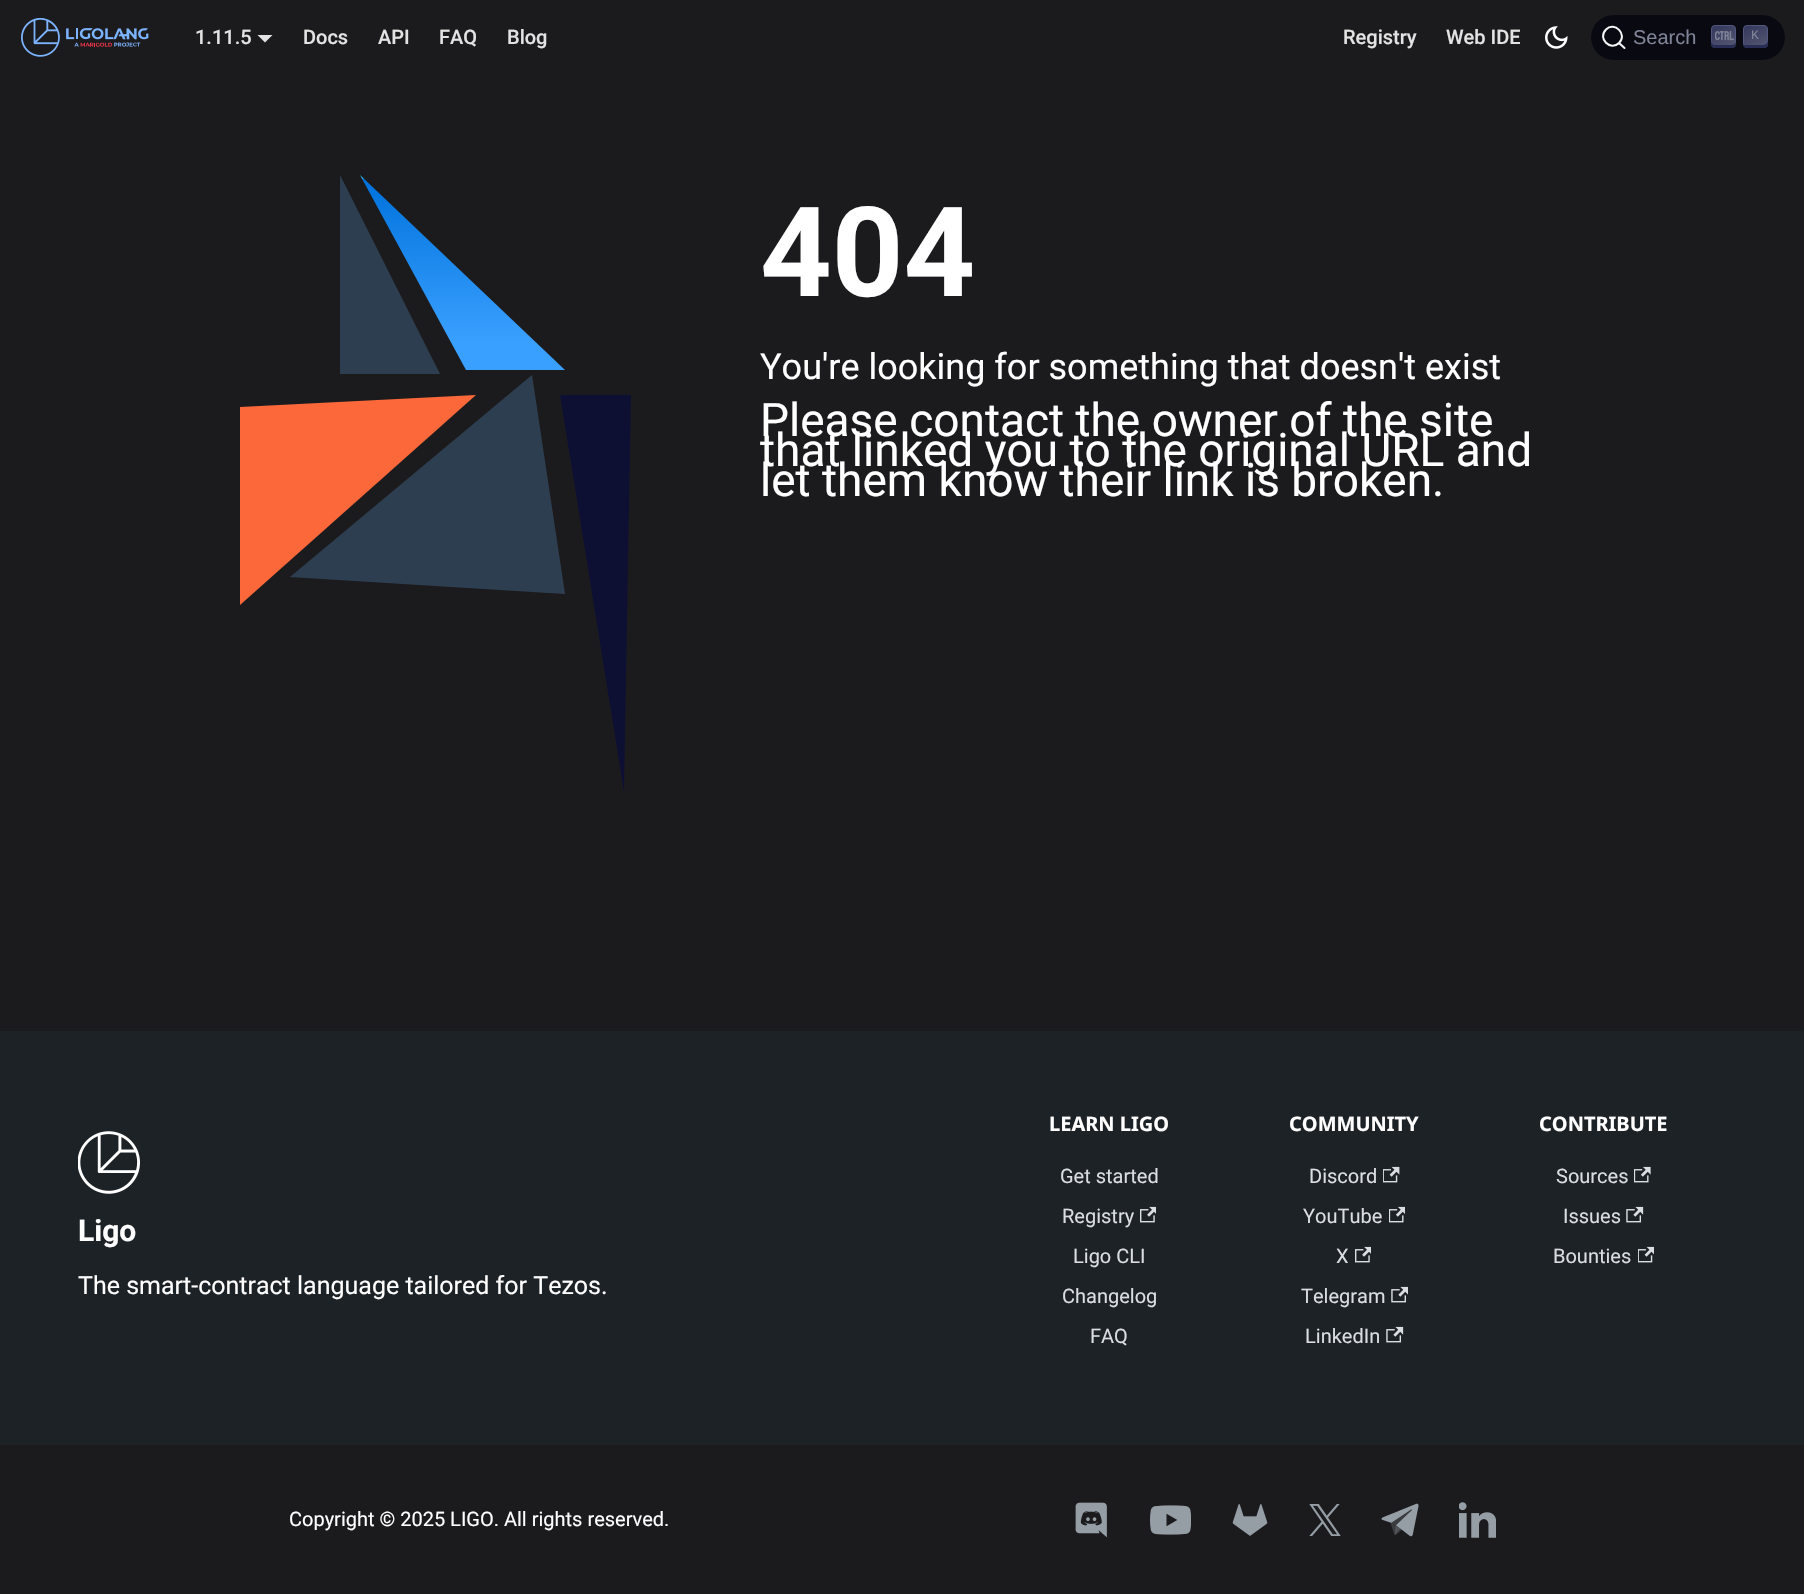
#include "include/core/SkBlurTypes.h"
#include "include/core/SkCanvas.h"
#include "include/core/SkData.h"
#include "include/core/SkFont.h"
#include "include/core/SkFontMgr.h"
#include "include/core/SkImage.h"
#include "include/core/SkMaskFilter.h"
#include "include/core/SkPaint.h"
#include "include/core/SkPathBuilder.h"
#include "include/core/SkTextBlob.h"
#include "include/effects/SkDashPathEffect.h"
#include "include/effects/SkGradientShader.h"
#include "include/utils/SkParsePath.h"

extern sk_sp<SkFontMgr> fontMgr;

void draw(SkCanvas* canvas) {
    SkPaint p;
    p.setAntiAlias(true);
    auto font = [&](const char* family, int weight, float size, bool italic = false) {
        SkFontStyle style(weight, SkFontStyle::kNormal_Width,
            italic ? SkFontStyle::kItalic_Slant : SkFontStyle::kUpright_Slant);
        SkFont result(fontMgr->matchFamilyStyle(family, style), size);
        result.setSubpixel(true);
        return result;
    };
    auto drawPhoto = [&](const char* path, float l, float t, float r, float b) {
        auto image = SkImages::DeferredFromEncodedData(SkData::MakeFromFileName(path));
        canvas->drawImageRect(image, SkRect::MakeLTRB(l, t, r, b), SkSamplingOptions());
    };
    canvas->clear(0xFF1B1B1D);
    drawPhoto("media/1.png", 21, 18, 149, 57);
    auto font1 = font("Roboto", 500, 20);
    p.setColor(0xFFE3E3E3);
    canvas->drawString("1.11.5", 195, 44, font1, p);
    canvas->drawPath(SkPathBuilder().moveTo(257.5f, 35).lineTo(272.5f, 35).lineTo(265, 42.5f).close().detach(), p);
    {
        const struct { const char* s; float x, y; } items[] = {
            {"Docs", 303, 44},
            {"API", 378, 44},
            {"FAQ", 439, 44},
            {"Blog", 507, 44},
            {"Registry", 1343, 44},
            {"Web IDE", 1446, 44},
        };
        for (auto [s, x, y] : items) {
            canvas->drawString(s, x, y, font1, p);
        }
    }
    drawPhoto("media/2.png", 1545, 26, 1568, 49);
    p.setColor(0xFF090A11);
    canvas->drawRoundRect(SkRect::MakeLTRB(1591, 15, 1785, 60), 22.5f, 22.5f, p);
    p.setStyle(SkPaint::kStroke_Style);
    p.setStrokeWidth(2);
    p.setStrokeCap(SkPaint::kRound_Cap);
    p.setStrokeJoin(SkPaint::kRound_Join);
    p.setColor(0xFFF5F6F7);
    canvas->drawPath(SkPathBuilder().moveTo(1619, 43).lineTo(1624.5f, 48).lineTo(1619, 43).cubicTo(1610.5f, 51.5f, 1597, 38.5f, 1606, 29.5f).cubicTo(1614.5f, 21, 1628, 34.5f, 1619, 43).close().detach(), p);
    auto font2 = font("Liberation Sans", 400, 20);
    p.setStyle(SkPaint::kFill_Style);
    p.setColor(0xFF7F8497);
    canvas->drawString("Search", 1633, 44, font2, p);
    {
        const SkColor colors[] = {0xFF565872, 0xFF31355B};
        const float stops[] = {0, 1};
        const SkPoint ends[] = {{1731, 50}, {1717, 22}};
        p.setShader(SkGradientShader::MakeLinear(ends, colors, stops, 2, SkTileMode::kClamp));
        p.setAlpha(255);
    }
    canvas->drawRoundRect(SkRect::MakeLTRB(1711.5f, 25.5f, 1735.5f, 47.5f), 3.5f, 3.5f, p);
    p.setStyle(SkPaint::kStroke_Style);
    p.setStrokeWidth(1);
    p.setStrokeCap(SkPaint::kButt_Cap);
    p.setStrokeJoin(SkPaint::kMiter_Join);
    p.setShader(nullptr);
    p.setColor(0xFF51577D);
    canvas->drawRoundRect(SkRect::MakeLTRB(1711.5f, 25.5f, 1735.5f, 47.5f), 3.5f, 3.5f, p);
    p.setStyle(SkPaint::kFill_Style);
    p.setColor(0xFF282D55);
    canvas->drawPath(SkPathBuilder().moveTo(1736, 42).cubicTo(1735.5f, 44, 1734, 45, 1730, 45).lineTo(1715, 45).cubicTo(1712, 45, 1711, 42.5f, 1711, 39.5f).lineTo(1711, 44).cubicTo(1711, 46, 1713, 48, 1715, 48).lineTo(1732, 48).cubicTo(1734, 48, 1736, 46, 1736, 44).close().detach(), p);
    drawPhoto("media/3.png", 1715, 31, 1734, 41);
    {
        const SkColor colors[] = {0xFF565872, 0xFF31355B};
        const float stops[] = {0, 1};
        const SkPoint ends[] = {{1762, 50}, {1748, 22}};
        p.setShader(SkGradientShader::MakeLinear(ends, colors, stops, 2, SkTileMode::kClamp));
        p.setAlpha(255);
    }
    canvas->drawRoundRect(SkRect::MakeLTRB(1743.5f, 25.5f, 1767.5f, 47.5f), 3.5f, 3.5f, p);
    p.setStyle(SkPaint::kStroke_Style);
    p.setShader(nullptr);
    p.setColor(0xFF51577D);
    canvas->drawRoundRect(SkRect::MakeLTRB(1743.5f, 25.5f, 1767.5f, 47.5f), 3.5f, 3.5f, p);
    p.setStyle(SkPaint::kFill_Style);
    p.setColor(0xFF282D55);
    canvas->drawPath(SkPathBuilder().moveTo(1743, 43.5f).lineTo(1743, 44).cubicTo(1743, 46, 1745, 48, 1747, 48).lineTo(1764, 48).cubicTo(1766, 48, 1768, 46, 1768, 44).lineTo(1768, 39.5f).cubicTo(1768, 43, 1766.5f, 45, 1761, 45).lineTo(1746, 45).cubicTo(1744.5f, 45, 1743.5f, 44.5f, 1743, 43.5f).close().detach(), p);
    auto font3 = font("Liberation Mono", 400, 13);
    p.setColor(0xFF7F8497);
    canvas->drawString("K", 1751, 39, font3, p);
    p.setColor(0xFF2D3E51);
    canvas->drawPath(SkPathBuilder().moveTo(340, 175).lineTo(440, 374).lineTo(340, 374).close().detach(), p);
    {
        const SkColor colors[] = {0xFF3AA0FF, 0xFF0072DC, 0xFF3AA0FF, 0xFF1AD5FD};
        const float stops[] = {0.14f, 0.98f, 0.98f, 1};
        const SkPoint ends[] = {{463, 370}, {463, 175}};
        p.setShader(SkGradientShader::MakeLinear(ends, colors, stops, 4, SkTileMode::kClamp));
        p.setAlpha(255);
    }
    canvas->drawPath(SkPathBuilder().moveTo(360, 175).lineTo(565, 370).lineTo(466, 370).close().detach(), p);
    p.setShader(nullptr);
    p.setColor(0xFFFC683A);
    canvas->drawPath(SkPathBuilder().moveTo(240, 407).lineTo(476, 395).lineTo(240, 605).close().detach(), p);
    p.setColor(0xFF2D3E51);
    canvas->drawPath(SkPathBuilder().moveTo(532, 375).lineTo(565, 594).lineTo(290, 577).close().detach(), p);
    p.setColor(0xFF0D0F33);
    canvas->drawPath(SkPathBuilder().moveTo(560, 395).lineTo(631, 395).lineTo(624, 792).close().detach(), p);
    auto font4 = font("Roboto", 700, 125);
    p.setColor(0xFFFFFFFF);
    canvas->drawString("404", 760, 296, font4, p);
    auto font5 = font("Roboto", 400, 36);
    canvas->drawString("You're looking for something that doesn't exist", 760, 379, font5, p);
    auto font6 = font("Roboto", 400, 46);
    {
        const struct { const char* s; float x, y; } items[] = {
            {"Please contact the owner of the site", 760, 436},
            {"that linked you to the original URL and", 760, 466},
            {"let them know their link is broken.", 760, 496},
        };
        for (auto [s, x, y] : items) {
            canvas->drawString(s, x, y, font6, p);
        }
    }
    p.setColor(0xFF1D2227);
    canvas->drawRect(SkRect::MakeLTRB(0, 1031, 1804, 1445), p);
    drawPhoto("media/4.png", 78, 1131, 140, 1194);
    auto font7 = font("Roboto", 700, 30);
    p.setColor(0xFFFFFFFF);
    canvas->drawString("Ligo", 78, 1241, font7, p);
    auto font8 = font("Roboto", 400, 25);
    canvas->drawString("The smart-contract language tailored for Tezos.", 78, 1294, font8, p);
    auto font9 = font("Noto Sans", 700, 20);
    canvas->drawString("LEARN LIGO", 1049, 1131, font9, p);
    auto font10 = font("Roboto", 400, 20);
    p.setColor(0xFFDADDE1);
    canvas->drawString("Get started", 1060, 1183, font10, p);
    canvas->drawString("Registry", 1062, 1223, font10, p);
    drawPhoto("media/5.png", 1140, 1206, 1156, 1223);
    {
        const struct { const char* s; float x, y; } items[] = {
            {"Ligo CLI", 1073, 1263},
            {"Changelog", 1062, 1303},
            {"FAQ", 1090, 1343},
        };
        for (auto [s, x, y] : items) {
            canvas->drawString(s, x, y, font10, p);
        }
    }
    p.setColor(0xFFFFFFFF);
    canvas->drawString("COMMUNITY", 1289, 1131, font9, p);
    p.setColor(0xFFDADDE1);
    canvas->drawString("Discord", 1309, 1183, font10, p);
    drawPhoto("media/6.png", 1383, 1166, 1400, 1183);
    canvas->drawString("YouTube", 1303, 1223, font10, p);
    drawPhoto("media/7.png", 1389, 1206, 1405, 1223);
    canvas->drawString("X", 1336, 1263, font10, p);
    drawPhoto("media/5.png", 1355, 1246, 1371, 1263);
    canvas->drawString("Telegram", 1301, 1303, font10, p);
    drawPhoto("media/8.png", 1391, 1286, 1408, 1303);
    canvas->drawString("LinkedIn", 1305, 1343, font10, p);
    drawPhoto("media/9.png", 1386, 1326, 1404, 1343);
    p.setColor(0xFFFFFFFF);
    canvas->drawString("CONTRIBUTE", 1539, 1131, font9, p);
    p.setColor(0xFFDADDE1);
    canvas->drawString("Sources", 1556, 1183, font10, p);
    drawPhoto("media/10.png", 1634, 1166, 1651, 1183);
    canvas->drawString("Issues", 1563, 1223, font10, p);
    drawPhoto("media/9.png", 1626, 1206, 1644, 1223);
    canvas->drawString("Bounties", 1553, 1263, font10, p);
    drawPhoto("media/11.png", 1638, 1246, 1654, 1263);
    p.setColor(0xFFFFFFFF);
    canvas->drawString("Copyright © 2025 LIGO. All rights reserved.", 289, 1526, font10, p);
    drawPhoto("media/12.png", 1075, 1502, 1107, 1538);
    drawPhoto("media/13.png", 1150, 1505, 1191, 1535);
    drawPhoto("media/14.png", 1232, 1504, 1268, 1536);
    drawPhoto("media/15.png", 1309, 1504, 1341, 1536);
    drawPhoto("media/16.png", 1381, 1503, 1419, 1537);
    drawPhoto("media/17.png", 1459, 1502, 1496, 1538);
}
